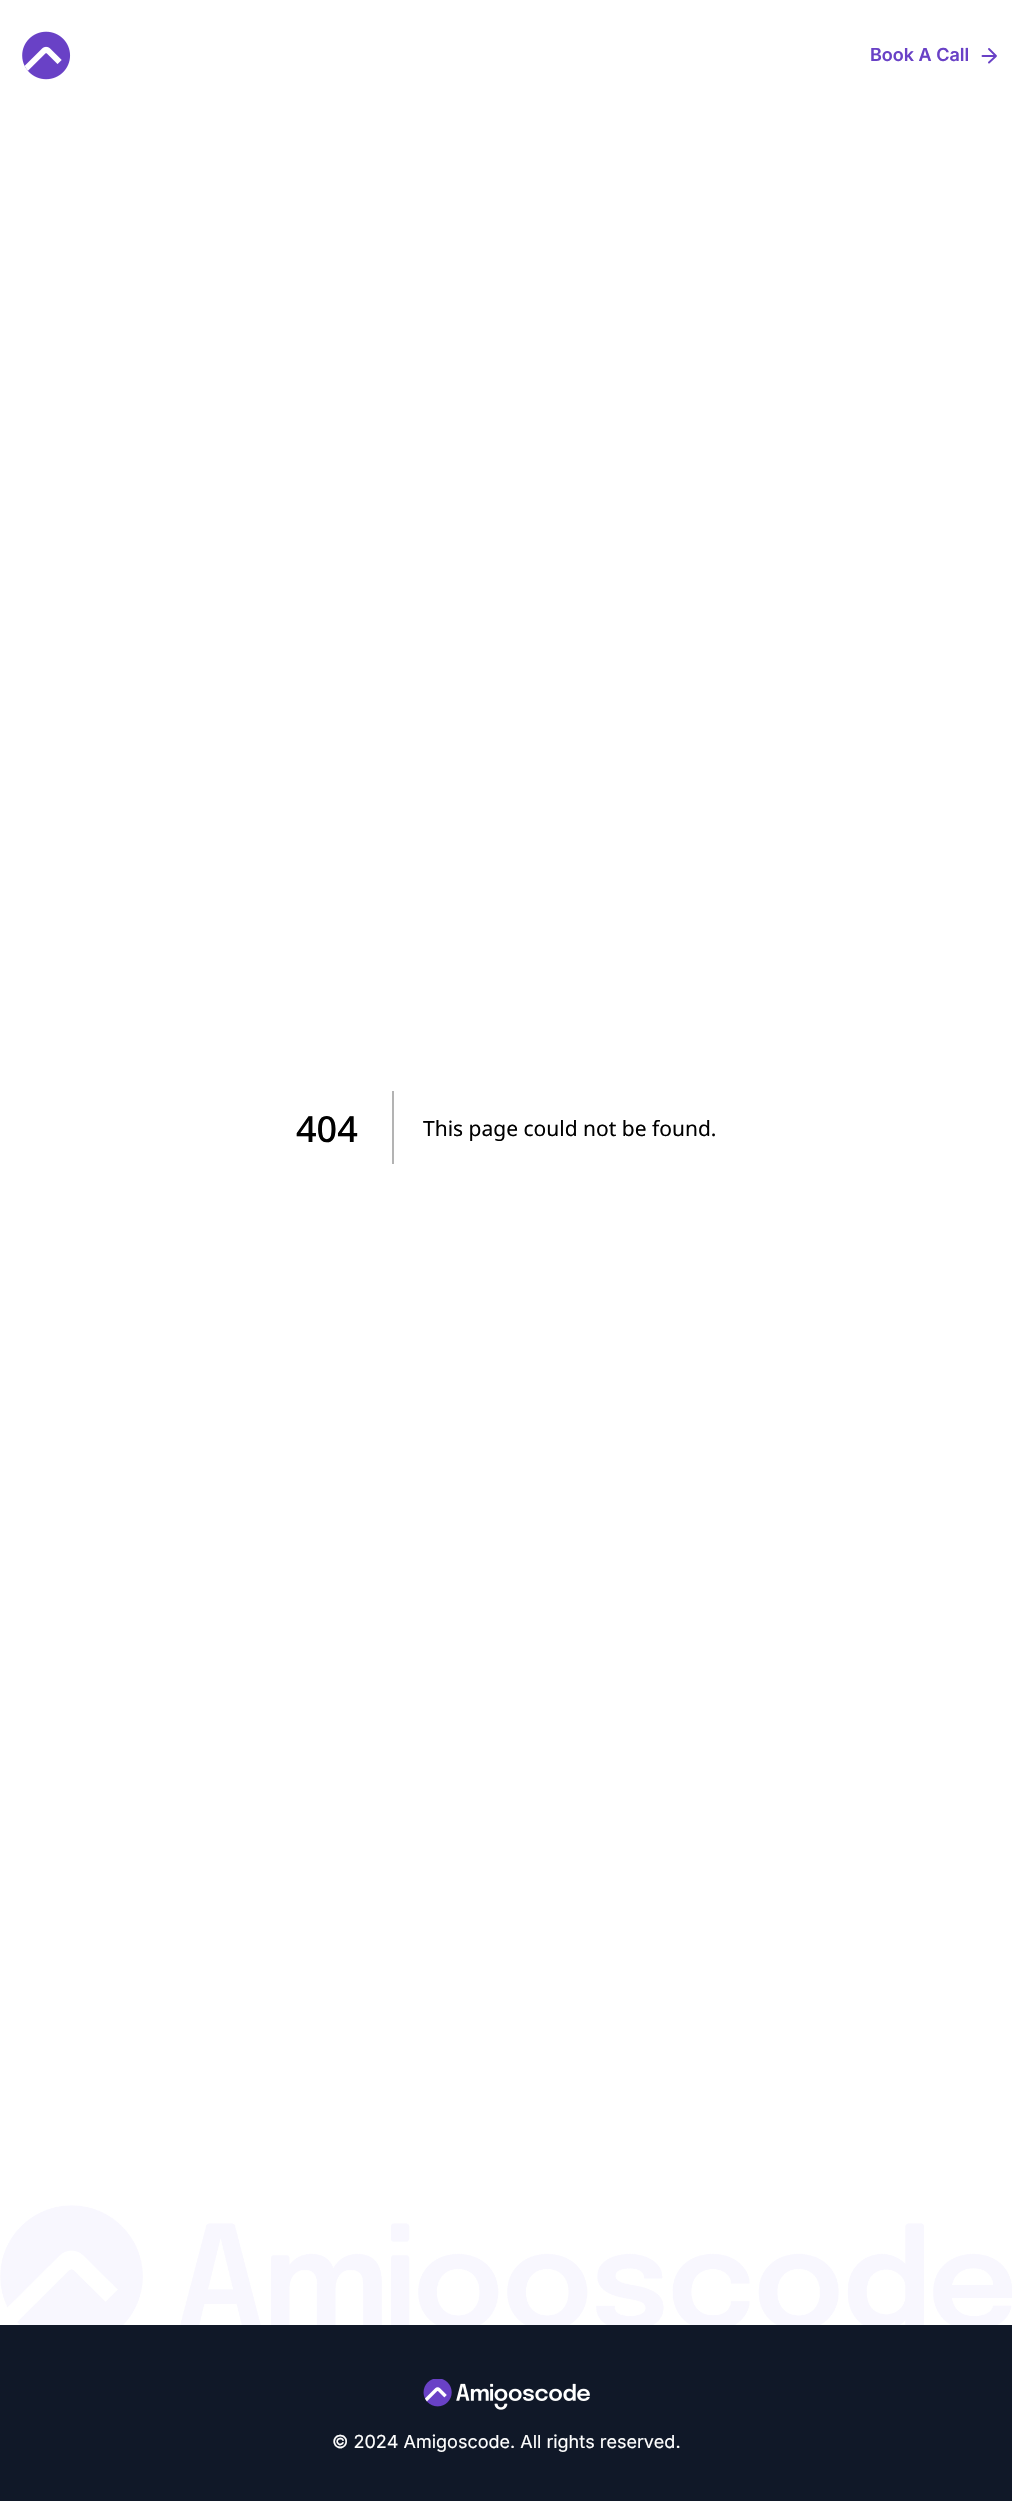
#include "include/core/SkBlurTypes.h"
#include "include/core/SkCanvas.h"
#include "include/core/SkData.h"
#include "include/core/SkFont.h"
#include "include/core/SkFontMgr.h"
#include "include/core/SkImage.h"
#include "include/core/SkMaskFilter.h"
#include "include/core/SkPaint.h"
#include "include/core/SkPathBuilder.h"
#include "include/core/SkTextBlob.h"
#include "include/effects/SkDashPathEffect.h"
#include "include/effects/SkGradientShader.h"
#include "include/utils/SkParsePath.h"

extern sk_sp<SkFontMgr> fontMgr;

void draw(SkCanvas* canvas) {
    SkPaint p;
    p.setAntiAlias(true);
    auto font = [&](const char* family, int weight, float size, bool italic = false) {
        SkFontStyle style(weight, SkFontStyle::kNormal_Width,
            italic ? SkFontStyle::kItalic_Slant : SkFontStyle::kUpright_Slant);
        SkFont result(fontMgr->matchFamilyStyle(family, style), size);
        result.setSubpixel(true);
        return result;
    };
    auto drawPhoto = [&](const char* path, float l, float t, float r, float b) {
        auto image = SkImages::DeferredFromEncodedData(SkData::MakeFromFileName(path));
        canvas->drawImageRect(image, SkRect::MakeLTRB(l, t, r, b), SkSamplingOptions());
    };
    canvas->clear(0xFFFFFFFF);
    drawPhoto("media/1.png", 22, 31, 71, 80);
    auto font1 = font("Inter", 600, 18);
    p.setColor(0xFF6941C6);
    canvas->drawString("Book A Call", 870, 61, font1, p);
    p.setStyle(SkPaint::kStroke_Style);
    p.setStrokeWidth(1.9f);
    p.setStrokeCap(SkPaint::kRound_Cap);
    p.setStrokeJoin(SkPaint::kRound_Join);
    canvas->drawPath(SkPathBuilder().moveTo(982.5f, 56).lineTo(996, 56).moveTo(996, 56).lineTo(989, 49).moveTo(996, 56).lineTo(989, 62.5f).detach(), p);
    p.setStyle(SkPaint::kFill_Style);
    p.setColor(0xFFB3B3B3);
    canvas->drawRect(SkRect::MakeLTRB(392, 1091, 394, 1164), p);
    auto font2 = font("Noto Sans", 500, 36);
    p.setColor(0xFF000000);
    canvas->drawString("404", 296, 1142, font2, p);
    auto font3 = font("Noto Sans", 400, 21);
    canvas->drawString("This page could not be found.", 423, 1136, font3, p);
    drawPhoto("media/2.png", 0, 2205, 1012, 2325);
    p.setColor(0xFF101828);
    canvas->drawRect(SkRect::MakeLTRB(0, 2325, 1012, 2501), p);
    drawPhoto("media/3.png", 423, 2379, 590, 2410);
    auto font4 = font("Inter", 400, 18);
    p.setColor(0xFFFFFFFF);
    canvas->drawString("© 2024 Amigoscode. All rights reserved.", 332, 2448, font4, p);
}
